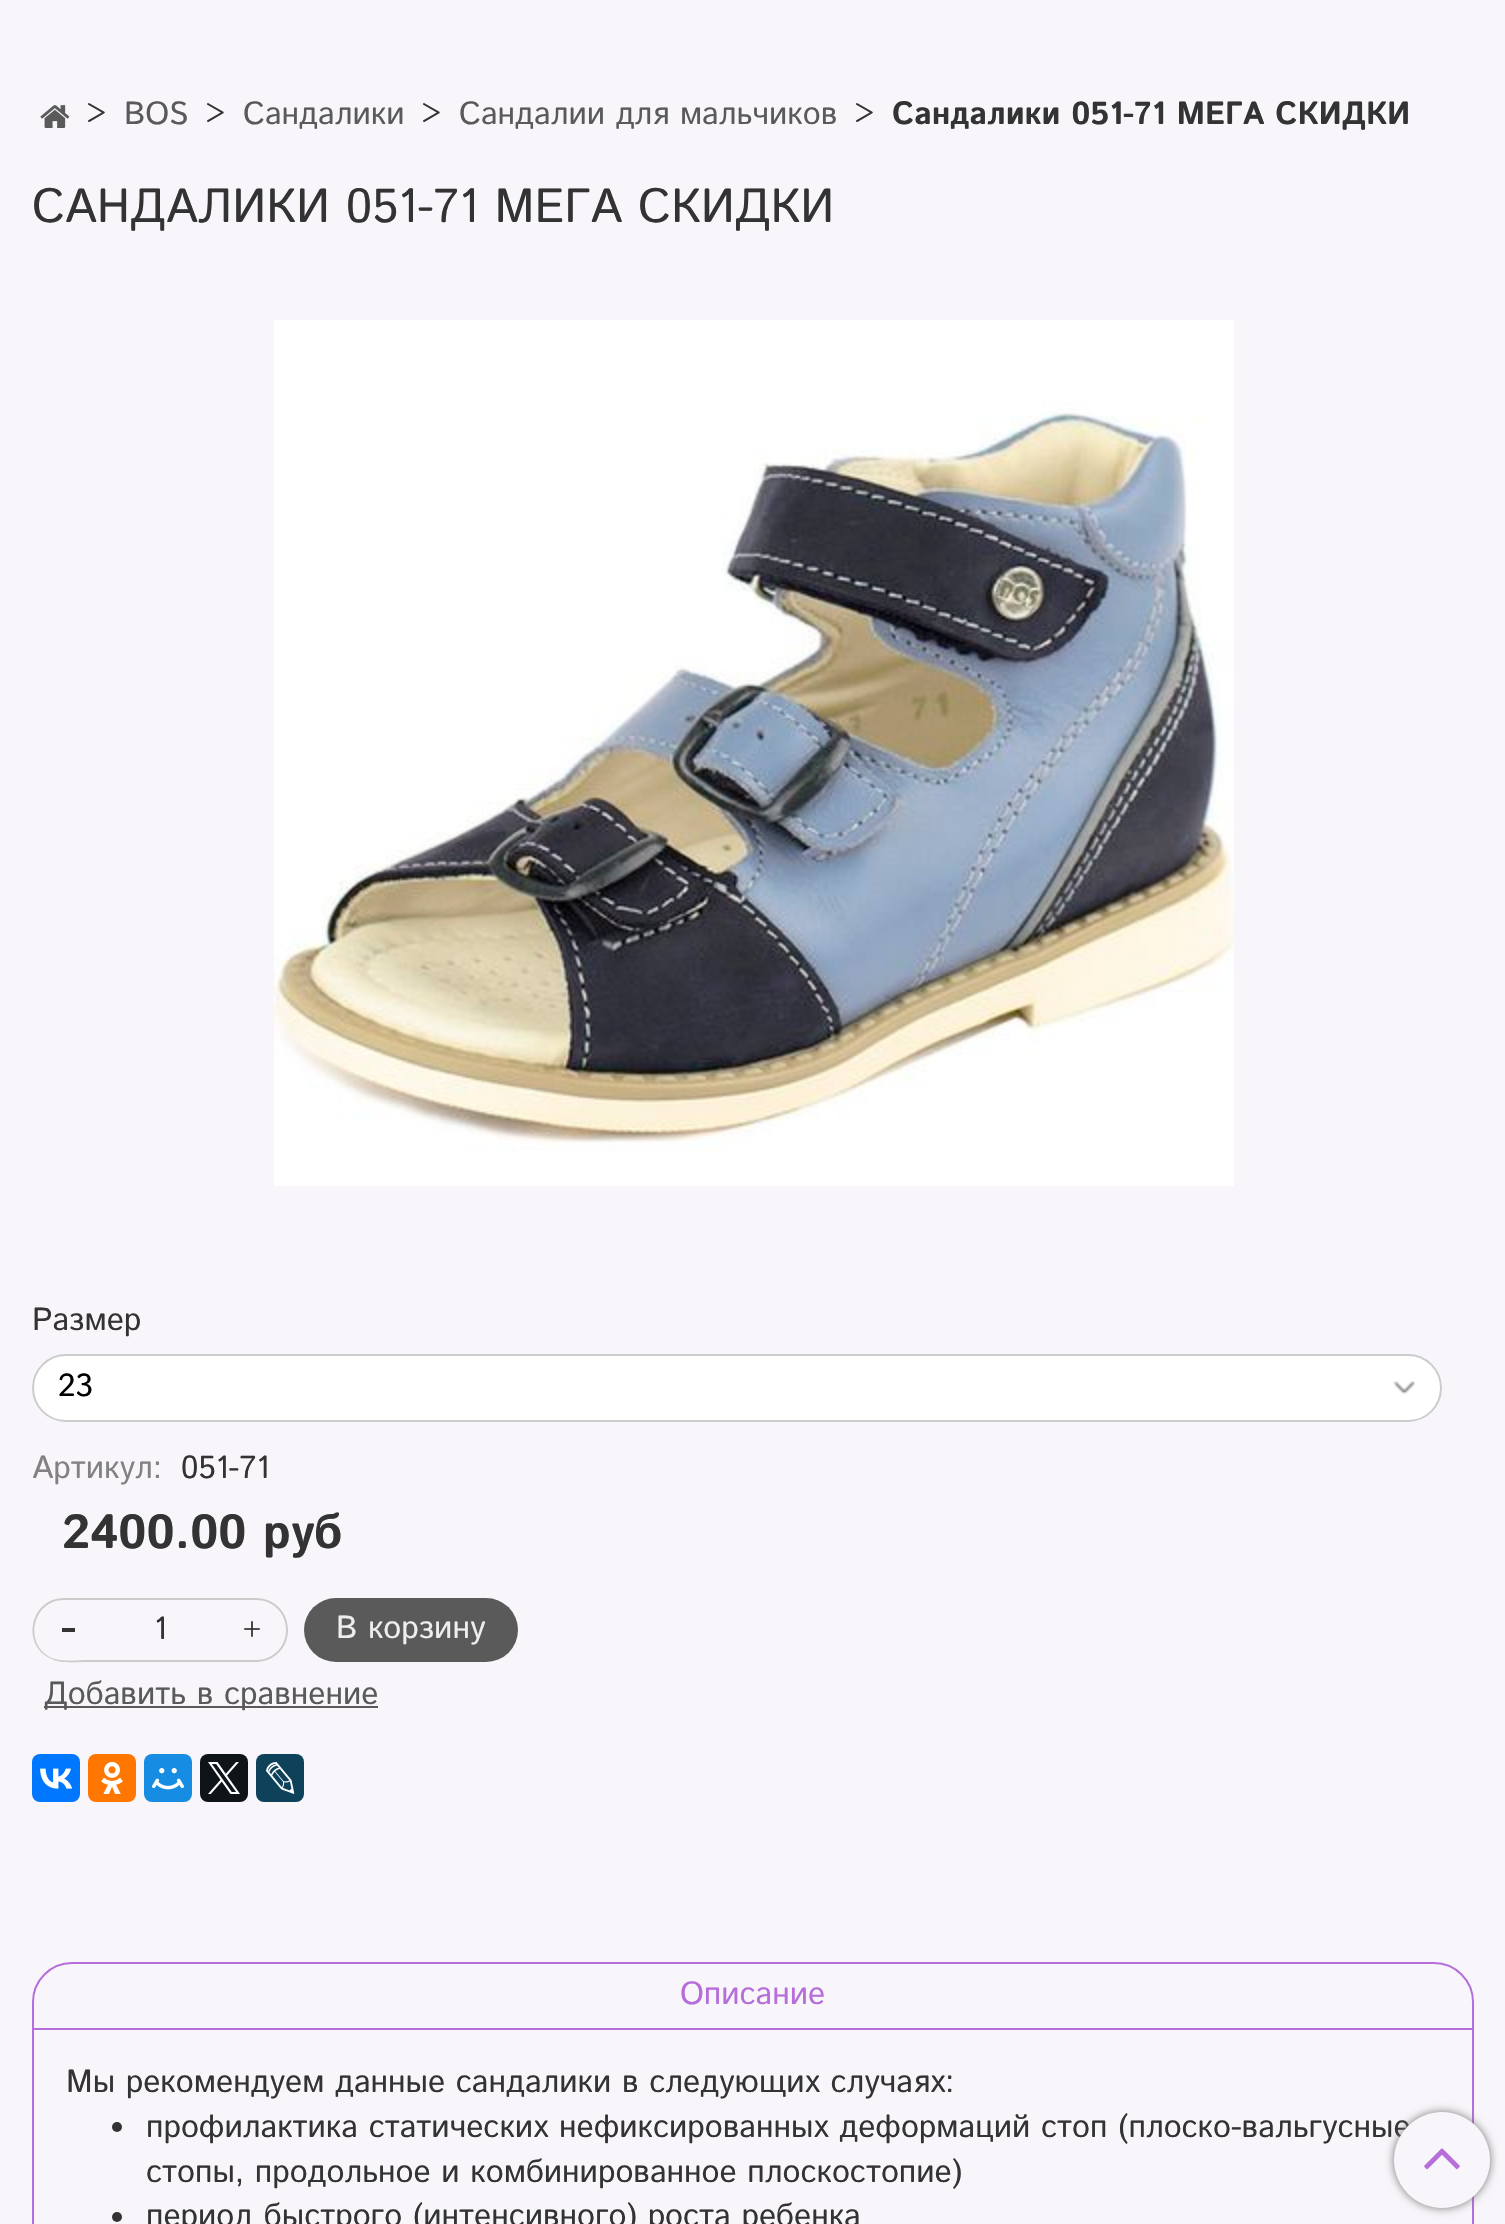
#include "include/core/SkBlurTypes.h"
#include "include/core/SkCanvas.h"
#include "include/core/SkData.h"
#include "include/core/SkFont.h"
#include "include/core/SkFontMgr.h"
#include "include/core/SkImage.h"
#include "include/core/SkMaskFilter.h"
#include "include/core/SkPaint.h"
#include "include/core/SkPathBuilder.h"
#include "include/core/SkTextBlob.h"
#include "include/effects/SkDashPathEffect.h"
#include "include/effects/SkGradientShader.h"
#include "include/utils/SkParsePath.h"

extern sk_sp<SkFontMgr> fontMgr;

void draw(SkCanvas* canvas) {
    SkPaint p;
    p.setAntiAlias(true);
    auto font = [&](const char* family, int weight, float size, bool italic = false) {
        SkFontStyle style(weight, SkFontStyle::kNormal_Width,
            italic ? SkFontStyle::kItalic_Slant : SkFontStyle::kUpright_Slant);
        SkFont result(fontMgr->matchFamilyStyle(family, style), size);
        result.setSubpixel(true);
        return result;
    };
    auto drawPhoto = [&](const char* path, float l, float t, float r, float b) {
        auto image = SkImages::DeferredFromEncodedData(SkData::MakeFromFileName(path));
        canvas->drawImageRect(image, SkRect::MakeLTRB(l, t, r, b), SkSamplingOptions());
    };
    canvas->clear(0xFFF9F6FB);
    drawPhoto("media/1.png", 40, 105, 70, 128);
    auto font1 = font("Istok Web", 400, 32);
    p.setColor(0xFF333333);
    canvas->drawString(">", 86, 124, font1, p);
    p.setColor(0xFF5A5A5A);
    canvas->drawString("BOS", 124, 124, font1, p);
    p.setColor(0xFF333333);
    canvas->drawString(">", 205, 124, font1, p);
    p.setColor(0xFF5A5A5A);
    canvas->drawString("Сандалики", 243, 124, font1, p);
    p.setColor(0xFF333333);
    canvas->drawString(">", 421, 124, font1, p);
    p.setColor(0xFF5A5A5A);
    canvas->drawString("Сандалии для мальчиков", 459, 124, font1, p);
    p.setColor(0xFF333333);
    canvas->drawString(">", 854, 124, font1, p);
    auto font2 = font("Istok Web", 700, 32);
    canvas->drawString("Сандалики 051-71 МЕГА СКИДКИ", 892, 124, font2, p);
    auto font3 = font("Istok Web", 400, 48);
    canvas->drawString("САНДАЛИКИ 051-71 МЕГА СКИДКИ", 32, 222, font3, p);
    drawPhoto("media/2.png", 274, 320, 1234, 1186);
    canvas->drawString("Размер", 32, 1330, font1, p);
    p.setColor(0xFFFFFFFF);
    canvas->drawRoundRect(SkRect::MakeLTRB(32, 1354, 1442, 1422), 34, 34, p);
    drawPhoto("media/3.png", 1393, 1381, 1415, 1395);
    p.setStyle(SkPaint::kStroke_Style);
    p.setStrokeWidth(2);
    p.setColor(0xFFCCCCCC);
    canvas->drawRoundRect(SkRect::MakeLTRB(33, 1355, 1441, 1421), 33, 33, p);
    p.setStyle(SkPaint::kFill_Style);
    p.setColor(0xFF000000);
    canvas->drawString("23", 58, 1396, font1, p);
    p.setColor(0xFF828183);
    canvas->drawString("Артикул:", 32, 1478, font1, p);
    p.setColor(0xFF333333);
    canvas->drawString("051-71", 181, 1478, font1, p);
    auto font4 = font("Istok Web", 700, 48);
    canvas->drawString("2400.00 руб", 62, 1548, font4, p);
    p.setColor(0xFFCCCCCC);
    canvas->drawPath(SkPathBuilder(SkPathFillType::kEvenOdd).moveTo(64, 1598).lineTo(88, 1598).lineTo(88, 1662).cubicTo(77, 1662, 61, 1664, 52, 1659).cubicTo(20, 1646, 30, 1598, 64, 1598).close().moveTo(64, 1600).lineTo(88, 1600).lineTo(88, 1660).cubicTo(77, 1660, 62, 1662, 52, 1658).cubicTo(23, 1645, 32, 1600, 64, 1600).close().detach(), p);
    {
        const struct { float l, t, r, b; SkColor color; } items[] = {
            {62, 1628, 75, 1632, 0xFF333333},
            {88, 1598, 232, 1600, 0xFFCCCCCC},
            {88, 1660, 232, 1662, 0xFFCCCCCC},
        };
        for (auto [l, t, r, b, color] : items) {
            p.setColor(color);
            canvas->drawRect(SkRect::MakeLTRB(l, t, r, b), p);
        }
    }
    p.setColor(0xFF333333);
    canvas->drawString("1", 154, 1639, font1, p);
    p.setColor(0xFFCCCCCC);
    canvas->drawPath(SkPathBuilder(SkPathFillType::kEvenOdd).moveTo(232, 1598).lineTo(256, 1598).cubicTo(274, 1598, 288, 1612, 288, 1630).cubicTo(288, 1648, 274, 1662, 256, 1662).lineTo(232, 1662).close().moveTo(232, 1600).lineTo(256, 1600).cubicTo(273, 1600, 286, 1613, 286, 1630).cubicTo(286, 1647, 273, 1660, 256, 1660).lineTo(232, 1660).close().detach(), p);
    drawPhoto("media/4.png", 244, 1621, 260, 1637);
    p.setColor(0xFF5A5A5A);
    canvas->drawRoundRect(SkRect::MakeLTRB(304, 1598, 518, 1662), 32, 32, p);
    p.setColor(0xFFEEEEEE);
    canvas->drawString("В корзину", 336, 1638, font1, p);
    p.setColor(0xFF5A5A5A);
    canvas->drawRect(SkRect::MakeLTRB(44, 1706, 378, 1708), p);
    canvas->drawString("Добавить в сравнение", 44, 1704, font1, p);
    p.setColor(0xFF0077FF);
    canvas->drawRoundRect(SkRect::MakeLTRB(32, 1754, 80, 1802), 8, 8, p);
    drawPhoto("media/5.png", 40, 1768, 73, 1789);
    p.setColor(0xFFFF7700);
    canvas->drawRoundRect(SkRect::MakeLTRB(88, 1754, 136, 1802), 8, 8, p);
    drawPhoto("media/6.png", 101, 1762, 123, 1794);
    p.setColor(0xFF168DE2);
    canvas->drawRoundRect(SkRect::MakeLTRB(144, 1754, 192, 1802), 8, 8, p);
    drawPhoto("media/7.png", 152, 1768, 184, 1790);
    p.setColor(0xFF0F1419);
    canvas->drawRoundRect(SkRect::MakeLTRB(200, 1754, 248, 1802), 8, 8, p);
    drawPhoto("media/8.png", 208, 1762, 240, 1794);
    p.setColor(0xFF0D425A);
    canvas->drawRoundRect(SkRect::MakeLTRB(256, 1754, 304, 1802), 8, 8, p);
    drawPhoto("media/9.png", 266, 1762, 295, 1794);
    p.setStyle(SkPaint::kStroke_Style);
    p.setColor(0xFFB66EDA);
    canvas->drawPath(SkPathBuilder().moveTo(72, 1963).lineTo(1434, 1963).cubicTo(1455.5f, 1963, 1473, 1980.5f, 1473, 2002).lineTo(1473, 2029).lineTo(33, 2029).lineTo(33, 2002).cubicTo(33, 1980.5f, 50.5f, 1963, 72, 1963).close().detach(), p);
    p.setStyle(SkPaint::kFill_Style);
    canvas->drawString("Описание", 680, 2004, font1, p);
    canvas->drawPath(SkPathBuilder(SkPathFillType::kEvenOdd).moveTo(32, 2030).lineTo(1474, 2030).lineTo(1474, 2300).cubicTo(1474, 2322, 1456, 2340, 1434, 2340).lineTo(72, 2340).cubicTo(50, 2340, 32, 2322, 32, 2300).close().moveTo(34, 2030).lineTo(1472, 2030).lineTo(1472, 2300).cubicTo(1472, 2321, 1455, 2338, 1434, 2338).lineTo(72, 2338).cubicTo(51, 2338, 34, 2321, 34, 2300).close().detach(), p);
    p.setColor(0xFF333333);
    canvas->drawString("Мы рекомендуем данные сандалики в следующих случаях:", 66, 2092, font1, p);
    canvas->drawCircle(117, 2127, 5, p);
    canvas->drawString("профилактика статических нефиксированных деформаций стоп (плоско-вальгусные", 146, 2137, font1, p);
    canvas->drawString("стопы, продольное и комбинированное плоскостопие)", 146, 2182, font1, p);
    canvas->drawCircle(117, 2217, 5, p);
    canvas->drawString("период быстрого (интенсивного) роста ребенка", 146, 2226, font1, p);
    p.setColor(0xFF777777);
    p.setMaskFilter(SkMaskFilter::MakeBlur(kNormal_SkBlurStyle, 5));
    canvas->drawRoundRect(SkRect::MakeLTRB(1394, 2112, 1490, 2208), 48, 48, p);
    p.setMaskFilter(nullptr);
    p.setColor(0xFFF9F6FB);
    canvas->drawCircle(1442, 2160, 48, p);
    drawPhoto("media/10.png", 1424, 2148, 1460, 2170);
}
